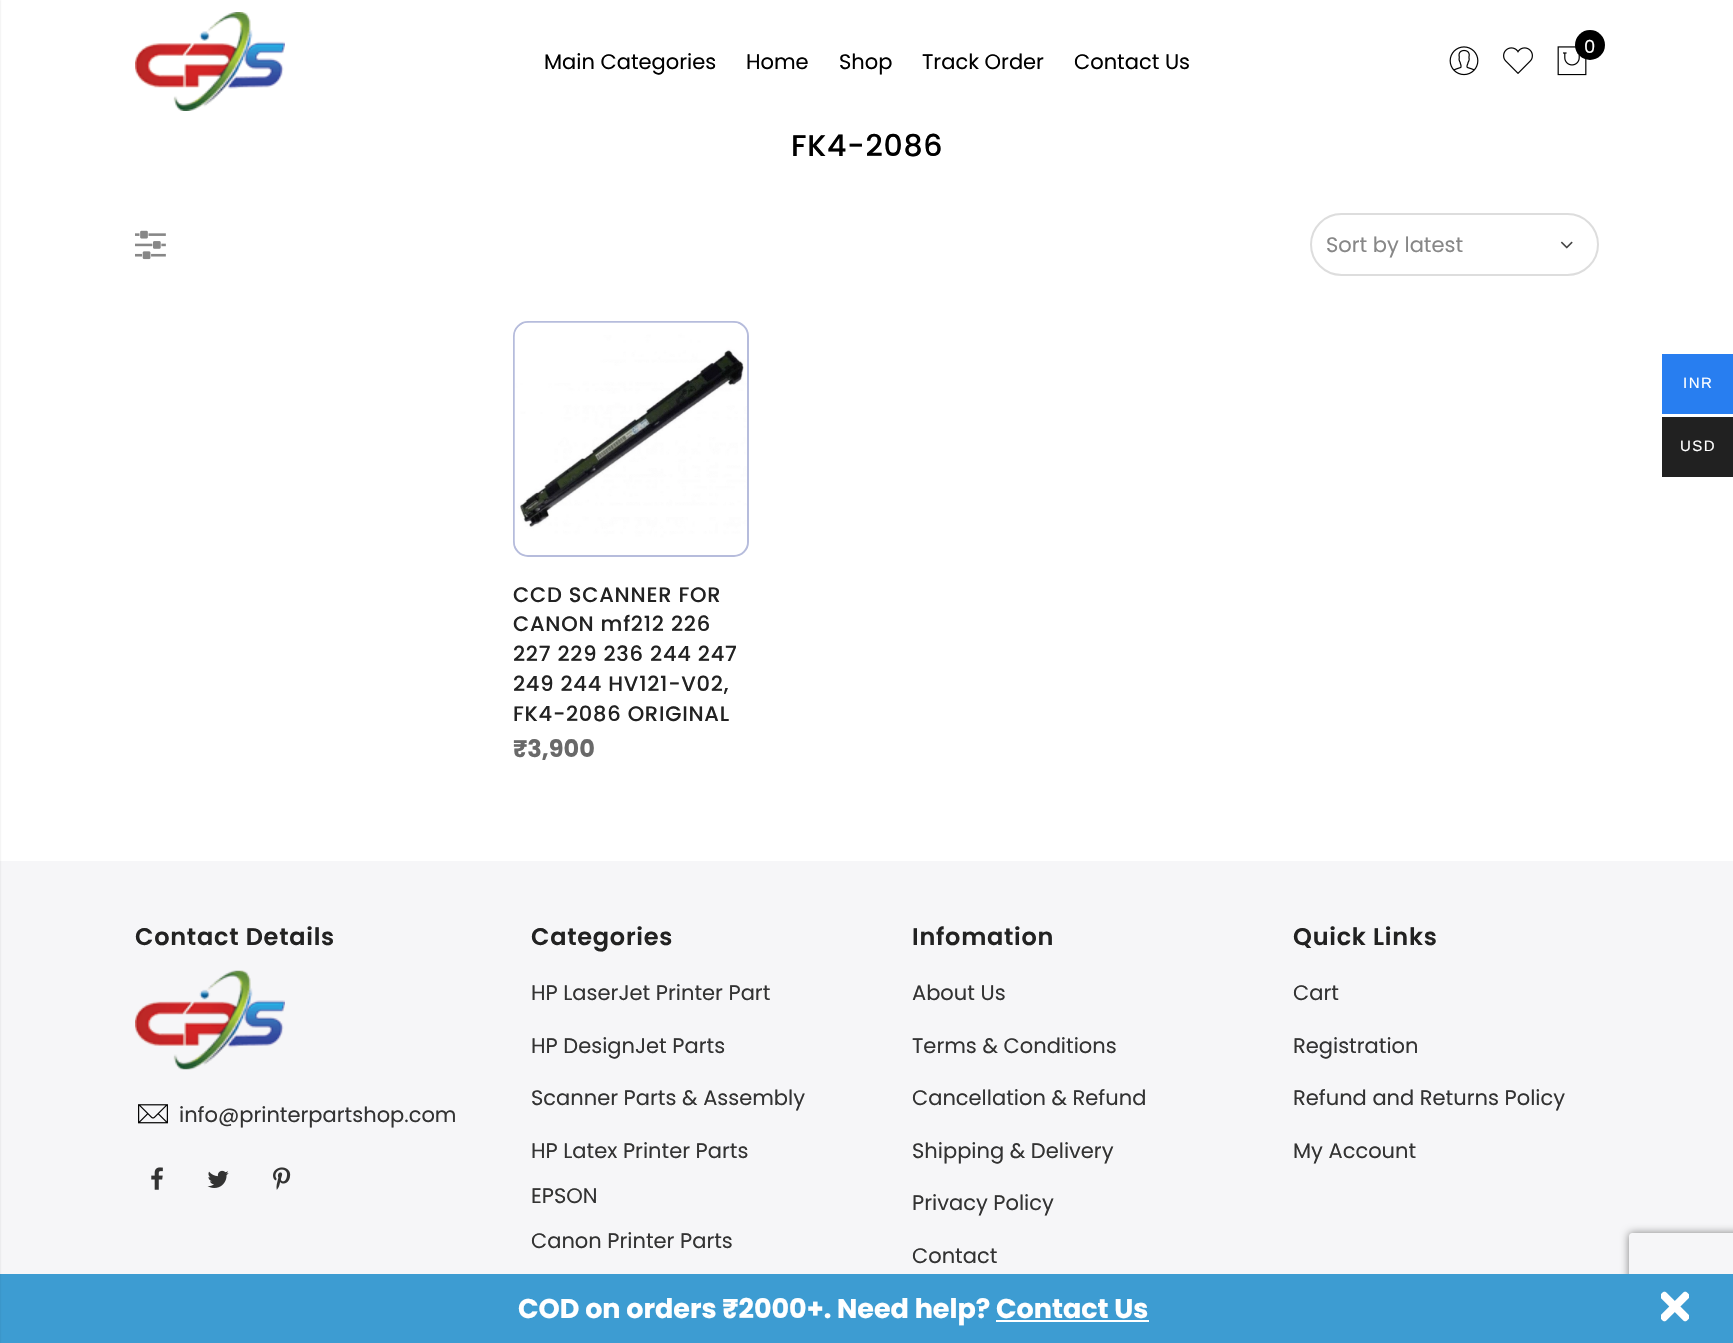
#include "include/core/SkBlurTypes.h"
#include "include/core/SkCanvas.h"
#include "include/core/SkData.h"
#include "include/core/SkFont.h"
#include "include/core/SkFontMgr.h"
#include "include/core/SkImage.h"
#include "include/core/SkMaskFilter.h"
#include "include/core/SkPaint.h"
#include "include/core/SkPathBuilder.h"
#include "include/core/SkTextBlob.h"
#include "include/effects/SkDashPathEffect.h"
#include "include/effects/SkGradientShader.h"
#include "include/utils/SkParsePath.h"

extern sk_sp<SkFontMgr> fontMgr;

void draw(SkCanvas* canvas) {
    SkPaint p;
    p.setAntiAlias(true);
    auto font = [&](const char* family, int weight, float size, bool italic = false) {
        SkFontStyle style(weight, SkFontStyle::kNormal_Width,
            italic ? SkFontStyle::kItalic_Slant : SkFontStyle::kUpright_Slant);
        SkFont result(fontMgr->matchFamilyStyle(family, style), size);
        result.setSubpixel(true);
        return result;
    };
    auto drawTracked = [&](const char* s, float x, float y, const SkFont& font, const SkPaint& ink, float letter, float word) {
        std::vector<SkGlyphID> glyphs(font.countText(s, strlen(s), SkTextEncoding::kUTF8));
        std::vector<float> xs(glyphs.size());
        font.textToGlyphs(s, strlen(s), SkTextEncoding::kUTF8, glyphs);
        font.getXPos(glyphs, xs, x);
        float extra = 0;
        for (size_t i = 0; i < glyphs.size(); i++) {
            xs[i] += extra;
            extra += letter + word * (glyphs[i] == font.unicharToGlyph(' '));
        }
        canvas->drawTextBlob(SkTextBlob::MakeFromPosHGlyphs(glyphs, xs, y, font), 0, 0, ink);
    };
    auto drawPhoto = [&](const char* path, float l, float t, float r, float b) {
        auto image = SkImages::DeferredFromEncodedData(SkData::MakeFromFileName(path));
        canvas->drawImageRect(image, SkRect::MakeLTRB(l, t, r, b), SkSamplingOptions());
    };
    canvas->clear(0xFFFFFFFF);
    drawPhoto("media/1.png", 135, 12, 285, 111);
    drawPhoto("media/2.png", 1449, 46, 1479, 76);
    drawPhoto("media/3.png", 1503, 47, 1533, 74);
    drawPhoto("media/4.png", 1557, 46, 1587, 76);
    p.setColor(0xFF000000);
    canvas->drawCircle(1590, 45, 15, p);
    auto font1 = font("Poppins", 400, 18);
    p.setColor(0xFFFFFFFF);
    canvas->drawString("0", 1584, 53, font1, p);
    auto font2 = font("Poppins", 400, 21);
    p.setColor(0xFF000000);
    {
        const struct { const char* s; float x, y; } items[] = {
            {"Main Categories", 544, 69},
            {"Home", 746, 69},
            {"Shop", 839, 69},
            {"Track Order", 922, 69},
            {"Contact Us", 1074, 69},
        };
        for (auto [s, x, y] : items) {
            canvas->drawString(s, x, y, font2, p);
        }
    }
    auto font3 = font("Poppins", 500, 30);
    drawTracked("FK4-2086", 791, 156, font3, p, 0.75f, 0);
    p.setColor(0xFFF6F6F8);
    canvas->drawRect(SkRect::MakeLTRB(0, 861, 1733, 1274), p);
    canvas->save();
    canvas->clipPath(SkPathBuilder(SkPathFillType::kEvenOdd).moveTo(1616, 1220).lineTo(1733, 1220).lineTo(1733, 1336).lineTo(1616, 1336).close().moveTo(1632, 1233).lineTo(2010, 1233).cubicTo(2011.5f, 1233, 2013, 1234.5f, 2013, 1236).lineTo(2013, 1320).cubicTo(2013, 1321.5f, 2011.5f, 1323, 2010, 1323).lineTo(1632, 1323).cubicTo(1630.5f, 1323, 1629, 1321.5f, 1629, 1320).lineTo(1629, 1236).cubicTo(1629, 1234.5f, 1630.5f, 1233, 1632, 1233).close().detach(), true);
    p.setColor(0xFF808080);
    p.setMaskFilter(SkMaskFilter::MakeBlur(kNormal_SkBlurStyle, 4));
    canvas->drawRoundRect(SkRect::MakeLTRB(1629, 1233, 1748, 1323), 3, 3, p);
    p.setMaskFilter(nullptr);
    canvas->restore();
    p.setColor(0xFF3D9CD2);
    canvas->drawRect(SkRect::MakeLTRB(0, 1274, 1733, 1343), p);
    p.setColor(0x26000000);
    p.setMaskFilter(SkMaskFilter::MakeBlur(kNormal_SkBlurStyle, 1));
    canvas->drawRect(SkRect::MakeLTRB(-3, 0, 0, 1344), p);
    p.setMaskFilter(nullptr);
    drawPhoto("media/5.png", 135, 230, 166, 260);
    p.setStyle(SkPaint::kStroke_Style);
    p.setStrokeWidth(2);
    p.setColor(0xFFDDDDDD);
    canvas->drawRoundRect(SkRect::MakeLTRB(1311, 214, 1598, 275), 30.5f, 30.5f, p);
    p.setStyle(SkPaint::kFill_Style);
    p.setColor(0xFF878787);
    canvas->drawString("Sort by latest", 1326, 252, font2, p);
    drawPhoto("media/6.png", 1560, 241, 1573, 249);
    p.setStyle(SkPaint::kStroke_Style);
    p.setColor(0xFFB6BCDC);
    canvas->drawRoundRect(SkRect::MakeLTRB(514, 322, 748, 556), 14, 14, p);
    drawPhoto("media/7.png", 514, 322, 747, 555);
    auto font4 = font("Poppins", 500, 21);
    p.setStyle(SkPaint::kFill_Style);
    p.setColor(0xFF222222);
    {
        const struct { const char* s; float x, y; } items[] = {
            {"CCD SCANNER FOR", 513, 602},
            {"CANON mf212 226", 513, 631},
            {"227 229 236 244 247", 513, 661},
            {"249 244 HV121-V02,", 513, 691},
            {"FK4-2086 ORIGINAL", 513, 721},
        };
        for (auto [s, x, y] : items) {
            drawTracked(s, x, y, font4, p, 0.75f, 0);
        }
    }
    auto font5 = font("Poppins", 700, 24);
    p.setColor(0xFF696969);
    canvas->drawString("₹3,900", 513, 757, font5, p);
    auto font6 = font("Poppins", 600, 24);
    p.setColor(0xFF222222);
    drawTracked("Contact Details", 135, 945, font6, p, 0.75f, 0);
    drawPhoto("media/8.png", 135, 970, 285, 1070);
    drawPhoto("media/9.png", 138, 1104, 168, 1124);
    p.setColor(0xFF333333);
    canvas->drawString("info@printerpartshop.com", 179, 1122, font2, p);
    drawPhoto("media/10.png", 151, 1167, 163, 1190);
    drawPhoto("media/11.png", 207, 1170, 229, 1188);
    drawPhoto("media/12.png", 273, 1167, 291, 1190);
    p.setColor(0xFF222222);
    drawTracked("Categories", 531, 945, font6, p, 0.75f, 0);
    p.setColor(0xFF333333);
    {
        const struct { const char* s; float x, y; } items[] = {
            {"HP LaserJet Printer Part", 531, 1000},
            {"HP DesignJet Parts", 531, 1053},
            {"Scanner Parts & Assembly", 531, 1105},
            {"HP Latex Printer Parts", 531, 1158},
            {"EPSON", 531, 1203},
            {"Canon Printer Parts", 531, 1248},
        };
        for (auto [s, x, y] : items) {
            canvas->drawString(s, x, y, font2, p);
        }
    }
    p.setColor(0xFF222222);
    drawTracked("Infomation", 912, 945, font6, p, 0.75f, 0);
    p.setColor(0xFF333333);
    {
        const struct { const char* s; float x, y; } items[] = {
            {"About Us", 912, 1000},
            {"Terms & Conditions", 912, 1053},
            {"Cancellation & Refund", 912, 1105},
            {"Shipping & Delivery", 912, 1158},
            {"Privacy Policy", 912, 1210},
            {"Contact", 912, 1263},
        };
        for (auto [s, x, y] : items) {
            canvas->drawString(s, x, y, font2, p);
        }
    }
    p.setColor(0xFF222222);
    drawTracked("Quick Links", 1293, 945, font6, p, 0.75f, 0);
    p.setColor(0xFF333333);
    {
        const struct { const char* s; float x, y; } items[] = {
            {"Cart", 1293, 1000},
            {"Registration", 1293, 1053},
            {"Refund and Returns Policy", 1293, 1105},
            {"My Account", 1293, 1158},
        };
        for (auto [s, x, y] : items) {
            canvas->drawString(s, x, y, font2, p);
        }
    }
    p.setColor(0xFF287EF0);
    canvas->drawRect(SkRect::MakeLTRB(1662, 354, 1733, 414), p);
    auto font7 = font("Liberation Sans", 400, 15);
    p.setColor(0xFFFFFFFF);
    drawTracked("INR", 1683, 388, font7, p, 1.5f, 0);
    p.setColor(0xFF212121);
    canvas->drawRect(SkRect::MakeLTRB(1662, 417, 1733, 477), p);
    p.setColor(0xFFFFFFFF);
    drawTracked("USD", 1680, 451, font7, p, 1.5f, 0);
    auto font8 = font("Poppins", 700, 27);
    canvas->drawString("COD on orders ₹2000+. Need help? Contact Us", 518, 1318, font8, p);
    canvas->drawRect(SkRect::MakeLTRB(996, 1320, 1149, 1322), p);
    drawPhoto("media/13.png", 1661, 1291, 1689, 1322);
}
